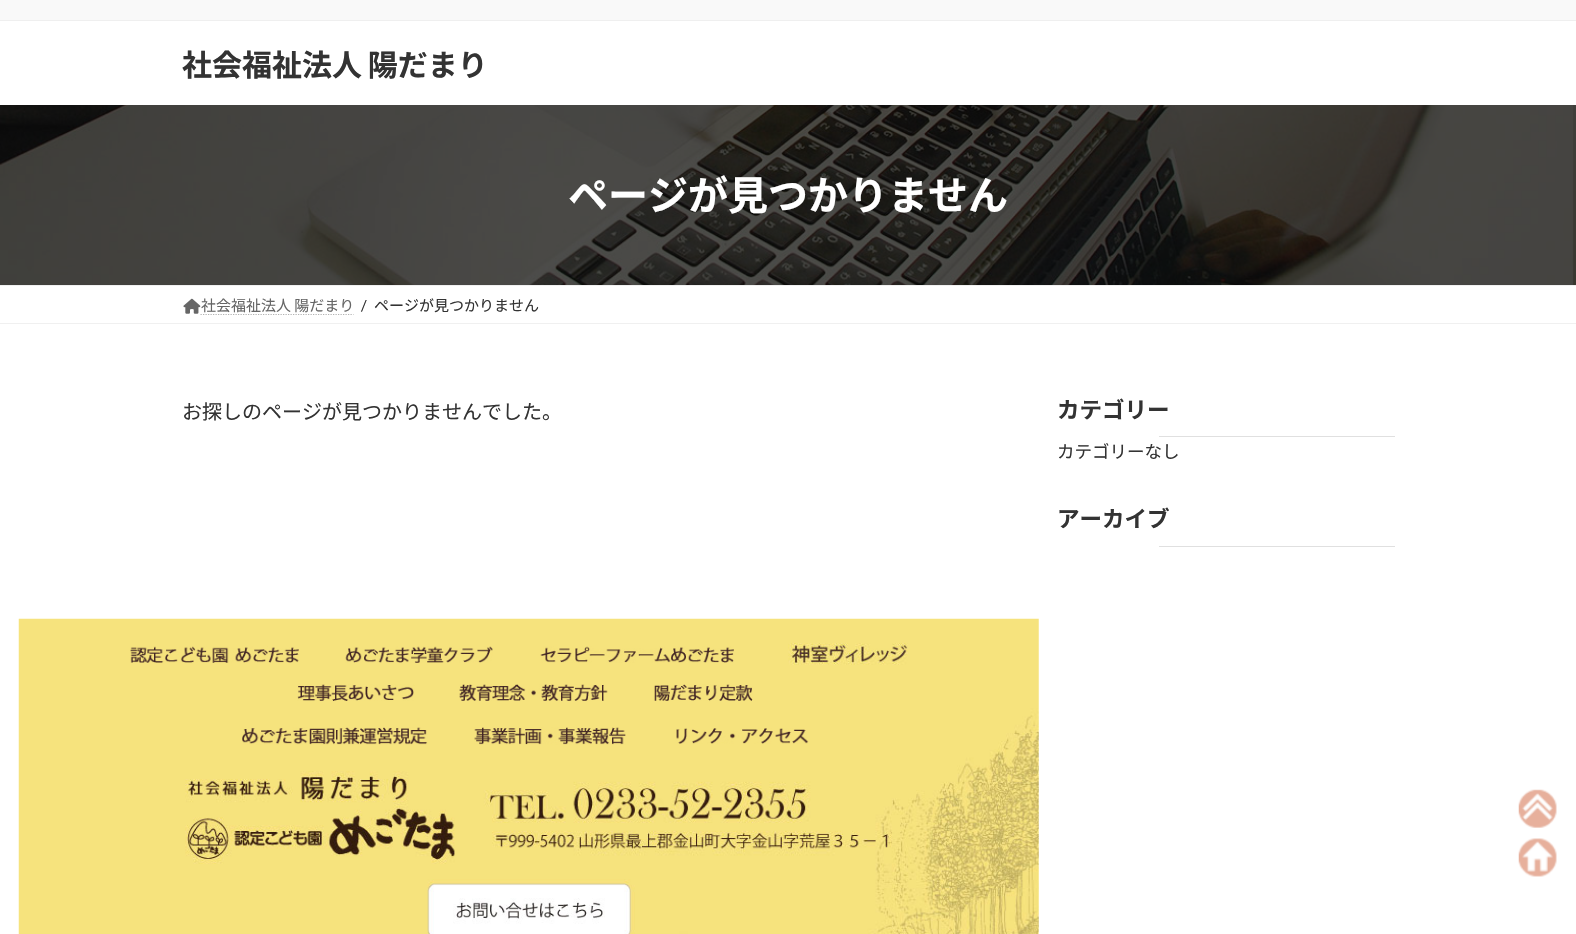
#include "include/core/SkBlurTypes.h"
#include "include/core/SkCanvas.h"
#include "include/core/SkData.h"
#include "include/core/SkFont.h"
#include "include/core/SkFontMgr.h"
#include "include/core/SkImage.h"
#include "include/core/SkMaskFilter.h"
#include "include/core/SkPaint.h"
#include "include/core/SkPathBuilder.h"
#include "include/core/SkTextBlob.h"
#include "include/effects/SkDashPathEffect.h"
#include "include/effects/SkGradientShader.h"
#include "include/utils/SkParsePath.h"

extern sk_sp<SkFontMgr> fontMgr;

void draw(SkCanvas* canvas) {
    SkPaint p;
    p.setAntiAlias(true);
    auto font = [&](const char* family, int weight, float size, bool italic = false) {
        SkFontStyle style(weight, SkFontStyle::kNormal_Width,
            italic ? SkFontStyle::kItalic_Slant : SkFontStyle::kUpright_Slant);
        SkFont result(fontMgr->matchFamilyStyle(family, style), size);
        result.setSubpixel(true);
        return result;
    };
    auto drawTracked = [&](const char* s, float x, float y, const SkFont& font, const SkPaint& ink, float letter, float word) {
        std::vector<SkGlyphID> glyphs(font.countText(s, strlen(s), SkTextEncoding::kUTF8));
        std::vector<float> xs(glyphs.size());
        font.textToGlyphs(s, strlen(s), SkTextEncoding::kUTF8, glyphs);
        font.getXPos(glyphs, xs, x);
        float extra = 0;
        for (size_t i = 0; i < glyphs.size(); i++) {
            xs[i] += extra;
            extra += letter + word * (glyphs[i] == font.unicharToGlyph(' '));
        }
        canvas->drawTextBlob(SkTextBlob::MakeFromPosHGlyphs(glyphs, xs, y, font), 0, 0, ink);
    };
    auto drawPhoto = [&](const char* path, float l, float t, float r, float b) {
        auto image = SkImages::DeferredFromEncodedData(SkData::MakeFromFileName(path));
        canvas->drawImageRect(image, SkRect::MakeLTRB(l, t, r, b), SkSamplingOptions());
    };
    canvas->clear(0xFFFFFFFF);
    p.setColor(0xFFF9F9F9);
    canvas->drawRect(SkRect::MakeLTRB(0, 0, 1576, 20), p);
    p.setColor(0xFFEFEFEF);
    canvas->drawRect(SkRect::MakeLTRB(0, 20, 1576, 21), p);
    auto font1 = font("Noto Sans JP", 700, 30);
    p.setColor(0xFF333333);
    drawTracked("社会福祉法人 陽だまり", 182, 76, font1, p, 0, -1);
    drawPhoto("media/1.png", 0, 105, 1576, 285);
    auto font2 = font("Noto Sans JP", 700, 40);
    p.setColor(0xFFFFFFFF);
    canvas->drawString("ページが見つかりません", 568, 210, font2, p);
    p.setColor(0xFFF0F0F0);
    canvas->drawRect(SkRect::MakeLTRB(0, 285, 1576, 286), p);
    canvas->drawRect(SkRect::MakeLTRB(0, 323, 1576, 324), p);
    auto font3 = font("Noto Sans JP", 400, 15);
    p.setColor(0xFF666666);
    canvas->drawString("社会福祉法人 陽だまり", 201, 311, font3, p);
    p.setStyle(SkPaint::kStroke_Style);
    p.setStrokeWidth(1.2f);
    p.setColor(0xFFB3B3B3);
    p.setPathEffect(SkDashPathEffect::Make({{1.25f, 1.25f}}, 0));
    canvas->drawPath(SkPathBuilder().moveTo(200.5f, 314.5f).lineTo(353.5f, 314.5f).detach(), p);
    p.setPathEffect(nullptr);
    drawPhoto("media/2.png", 183, 298, 201, 314);
    auto font4 = font("Lato", 400, 15);
    p.setStyle(SkPaint::kFill_Style);
    p.setColor(0xFF333333);
    canvas->drawString("/", 361, 311, font4, p);
    canvas->drawString("ページが見つかりません", 374, 311, font3, p);
    auto font5 = font("Noto Sans JP", 400, 20);
    canvas->drawString("お探しのページが見つかりませんでした。", 182, 419, font5, p);
    p.setColor(0xFFE0E0E0);
    canvas->drawRect(SkRect::MakeLTRB(1159, 436, 1395, 437), p);
    auto font6 = font("Noto Sans JP", 700, 22.5f);
    p.setColor(0xFF333333);
    canvas->drawString("カテゴリー", 1057, 418, font6, p);
    auto font7 = font("Noto Sans JP", 400, 17.5f);
    canvas->drawString("カテゴリーなし", 1057, 458, font7, p);
    p.setColor(0xFFE0E0E0);
    canvas->drawRect(SkRect::MakeLTRB(1159, 546, 1395, 547), p);
    p.setColor(0xFF333333);
    canvas->drawString("アーカイブ", 1057, 527, font6, p);
    drawPhoto("media/3.png", 18, 618, 1039, 934);
    drawPhoto("media/4.png", 130, 646, 299, 663);
    drawPhoto("media/5.png", 345, 646, 493, 663);
    drawPhoto("media/6.png", 540, 646, 734, 663);
    drawPhoto("media/7.png", 788, 643, 908, 665);
    drawPhoto("media/8.png", 297, 684, 415, 701);
    drawPhoto("media/9.png", 459, 684, 608, 701);
    drawPhoto("media/10.png", 654, 684, 753, 701);
    drawPhoto("media/11.png", 242, 727, 428, 745);
    drawPhoto("media/12.png", 474, 727, 626, 745);
    drawPhoto("media/13.png", 676, 728, 809, 744);
    drawPhoto("media/14.png", 185, 771, 455, 864);
    drawPhoto("media/15.png", 427, 879, 635, 934);
    drawPhoto("media/16.png", 1518, 789, 1557, 828);
    drawPhoto("media/17.png", 1518, 838, 1557, 877);
}
